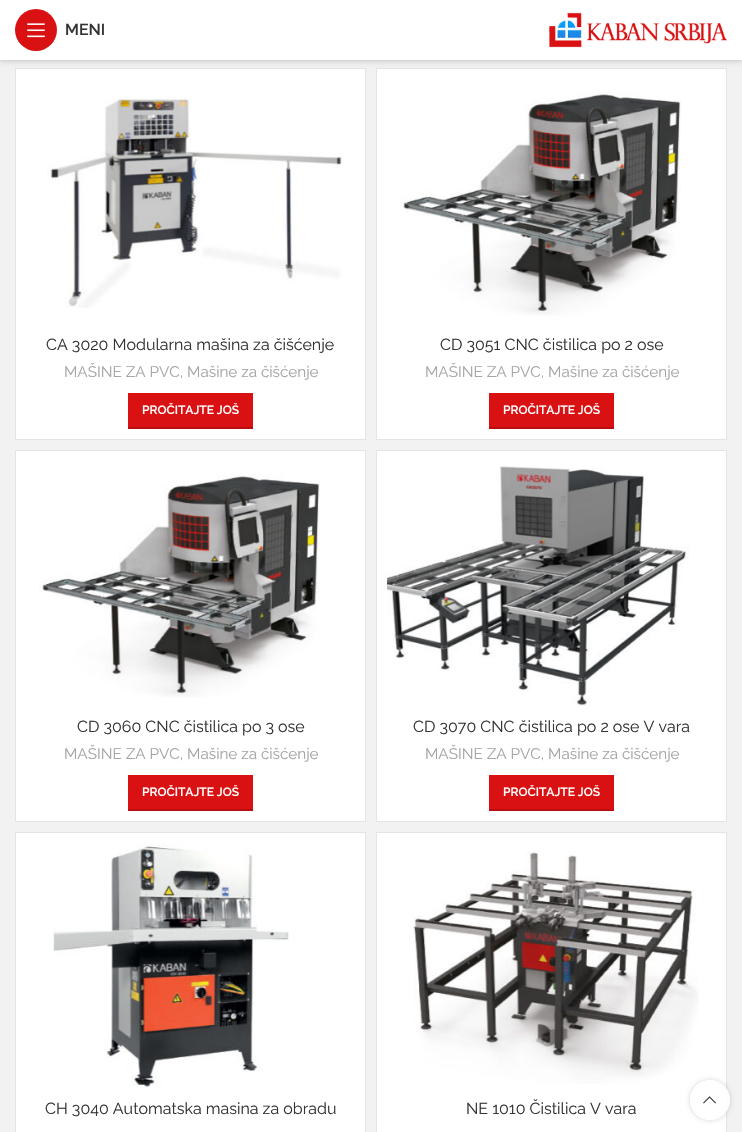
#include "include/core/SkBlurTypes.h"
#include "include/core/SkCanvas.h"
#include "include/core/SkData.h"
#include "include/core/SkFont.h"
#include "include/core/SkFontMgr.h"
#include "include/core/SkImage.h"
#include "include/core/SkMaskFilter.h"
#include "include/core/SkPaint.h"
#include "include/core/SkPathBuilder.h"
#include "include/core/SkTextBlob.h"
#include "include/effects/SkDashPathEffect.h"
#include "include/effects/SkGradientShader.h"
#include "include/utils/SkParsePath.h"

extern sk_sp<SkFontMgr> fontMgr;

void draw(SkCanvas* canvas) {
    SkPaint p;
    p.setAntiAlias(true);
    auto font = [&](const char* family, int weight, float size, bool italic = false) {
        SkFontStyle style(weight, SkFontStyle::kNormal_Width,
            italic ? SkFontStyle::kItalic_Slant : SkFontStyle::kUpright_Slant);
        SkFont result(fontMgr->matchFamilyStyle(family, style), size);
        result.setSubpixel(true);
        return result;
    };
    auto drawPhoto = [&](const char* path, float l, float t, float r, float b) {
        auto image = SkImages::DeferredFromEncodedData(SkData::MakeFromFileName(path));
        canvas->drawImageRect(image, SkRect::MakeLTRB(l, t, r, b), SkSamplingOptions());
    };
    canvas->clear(0xFFF2F2F2);
    p.setColor(0x1A000000);
    p.setMaskFilter(SkMaskFilter::MakeBlur(kNormal_SkBlurStyle, 1.5f));
    canvas->drawRect(SkRect::MakeLTRB(0, 1, 742, 61), p);
    p.setMaskFilter(nullptr);
    p.setColor(0xFFFFFFFF);
    canvas->drawRect(SkRect::MakeLTRB(15.5f, 68.5f, 365.5f, 439.5f), p);
    p.setStyle(SkPaint::kStroke_Style);
    p.setStrokeWidth(1);
    p.setColor(0xFFE4E4E4);
    canvas->drawRect(SkRect::MakeLTRB(15.5f, 68.5f, 365.5f, 439.5f), p);
    p.setStyle(SkPaint::kFill_Style);
    p.setColor(0xFFFFFFFF);
    canvas->drawRect(SkRect::MakeLTRB(376.5f, 68.5f, 726.5f, 439.5f), p);
    p.setStyle(SkPaint::kStroke_Style);
    p.setColor(0xFFE4E4E4);
    canvas->drawRect(SkRect::MakeLTRB(376.5f, 68.5f, 726.5f, 439.5f), p);
    p.setStyle(SkPaint::kFill_Style);
    p.setColor(0x1A000000);
    p.setMaskFilter(SkMaskFilter::MakeBlur(kNormal_SkBlurStyle, 4));
    canvas->drawRect(SkRect::MakeLTRB(0, 1, 742, 61), p);
    p.setMaskFilter(nullptr);
    p.setColor(0xFFFFFFFF);
    canvas->drawRect(SkRect::MakeLTRB(0, 0, 742, 60), p);
    p.setColor(0xFFDA1112);
    canvas->drawCircle(36, 30, 21, p);
    drawPhoto("media/1.png", 27, 23, 45, 38);
    auto font1 = font("Raleway", 600, 16);
    p.setColor(0xFF333333);
    canvas->drawString("MENI", 65, 35, font1, p);
    drawPhoto("media/2.png", 548, 12, 727, 48);
    drawPhoto("media/3.png", 47, 98, 342, 308);
    auto font2 = font("Raleway", 400, 16);
    canvas->drawString("CA 3020 Modularna mašina za čišćenje", 46, 350, font2, p);
    auto font3 = font("Raleway", 400, 15.25f);
    p.setColor(0xFFA5A5A5);
    canvas->drawString("MAŠINE ZA PVC, Mašine za čišćenje", 64, 377, font3, p);
    p.setColor(0xFFDA1112);
    canvas->drawRect(SkRect::MakeLTRB(128, 393, 253, 427), p);
    p.setColor(0xFFB90E0F);
    canvas->drawRect(SkRect::MakeLTRB(128, 427, 253, 429), p);
    auto font4 = font("Raleway", 600, 12);
    p.setColor(0xFFFFFFFF);
    canvas->drawString("PROČITAJTE JOŠ", 142, 414, font4, p);
    drawPhoto("media/4.png", 400, 92, 681, 316);
    p.setColor(0xFF333333);
    canvas->drawString("CD 3051 CNC čistilica po 2 ose", 440, 350, font2, p);
    p.setColor(0xFFA5A5A5);
    canvas->drawString("MAŠINE ZA PVC, Mašine za čišćenje", 425, 377, font3, p);
    p.setColor(0xFFDA1112);
    canvas->drawRect(SkRect::MakeLTRB(489, 393, 614, 427), p);
    p.setColor(0xFFB90E0F);
    canvas->drawRect(SkRect::MakeLTRB(489, 427, 614, 429), p);
    p.setColor(0xFFFFFFFF);
    canvas->drawString("PROČITAJTE JOŠ", 503, 414, font4, p);
    canvas->drawRect(SkRect::MakeLTRB(15.5f, 450.5f, 365.5f, 821.5f), p);
    p.setStyle(SkPaint::kStroke_Style);
    p.setColor(0xFFE4E4E4);
    canvas->drawRect(SkRect::MakeLTRB(15.5f, 450.5f, 365.5f, 821.5f), p);
    drawPhoto("media/5.png", 39, 474, 320, 698);
    p.setStyle(SkPaint::kFill_Style);
    p.setColor(0xFF333333);
    canvas->drawString("CD 3060 CNC čistilica po 3 ose", 77, 732, font2, p);
    p.setColor(0xFFA5A5A5);
    canvas->drawString("MAŠINE ZA PVC, Mašine za čišćenje", 64, 759, font3, p);
    p.setColor(0xFFDA1112);
    canvas->drawRect(SkRect::MakeLTRB(128, 775, 253, 809), p);
    p.setColor(0xFFB90E0F);
    canvas->drawRect(SkRect::MakeLTRB(128, 809, 253, 811), p);
    p.setColor(0xFFFFFFFF);
    canvas->drawString("PROČITAJTE JOŠ", 142, 796, font4, p);
    canvas->drawRect(SkRect::MakeLTRB(376.5f, 450.5f, 726.5f, 821.5f), p);
    p.setStyle(SkPaint::kStroke_Style);
    p.setColor(0xFFE4E4E4);
    canvas->drawRect(SkRect::MakeLTRB(376.5f, 450.5f, 726.5f, 821.5f), p);
    drawPhoto("media/6.png", 387, 466, 690, 706);
    p.setStyle(SkPaint::kFill_Style);
    p.setColor(0xFF333333);
    canvas->drawString("CD 3070 CNC čistilica po 2 ose V vara", 413, 732, font2, p);
    p.setColor(0xFFA5A5A5);
    canvas->drawString("MAŠINE ZA PVC, Mašine za čišćenje", 425, 759, font3, p);
    p.setColor(0xFFDA1112);
    canvas->drawRect(SkRect::MakeLTRB(489, 775, 614, 809), p);
    p.setColor(0xFFB90E0F);
    canvas->drawRect(SkRect::MakeLTRB(489, 809, 614, 811), p);
    p.setColor(0xFFFFFFFF);
    canvas->drawString("PROČITAJTE JOŠ", 503, 796, font4, p);
    canvas->drawRect(SkRect::MakeLTRB(15.5f, 832.5f, 365.5f, 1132.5f), p);
    p.setStyle(SkPaint::kStroke_Style);
    p.setColor(0xFFE4E4E4);
    canvas->drawRect(SkRect::MakeLTRB(15.5f, 832.5f, 365.5f, 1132.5f), p);
    drawPhoto("media/7.png", 52, 843, 289, 1088);
    p.setStyle(SkPaint::kFill_Style);
    p.setColor(0xFF333333);
    canvas->drawString("CH 3040 Automatska masina za obradu", 45, 1114, font2, p);
    p.setColor(0xFFFFFFFF);
    canvas->drawRect(SkRect::MakeLTRB(376.5f, 832.5f, 726.5f, 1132.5f), p);
    p.setStyle(SkPaint::kStroke_Style);
    p.setColor(0xFFE4E4E4);
    canvas->drawRect(SkRect::MakeLTRB(376.5f, 832.5f, 726.5f, 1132.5f), p);
    drawPhoto("media/8.png", 413, 851, 699, 1084);
    p.setStyle(SkPaint::kFill_Style);
    p.setColor(0xFF333333);
    canvas->drawString("NE 1010 Čistilica V vara", 466, 1114, font2, p);
    canvas->save();
    canvas->clipPath(SkPathBuilder(SkPathFillType::kEvenOdd).moveTo(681, 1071).lineTo(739, 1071).lineTo(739, 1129).lineTo(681, 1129).close().moveTo(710, 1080).cubicTo(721, 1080, 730, 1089, 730, 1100).cubicTo(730, 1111, 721, 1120, 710, 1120).cubicTo(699, 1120, 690, 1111, 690, 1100).cubicTo(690, 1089, 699, 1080, 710, 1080).close().detach(), true);
    p.setColor(0x2B000000);
    p.setMaskFilter(SkMaskFilter::MakeBlur(kNormal_SkBlurStyle, 2.5f));
    canvas->drawRoundRect(SkRect::MakeLTRB(690, 1080, 730, 1120), 20, 20, p);
    p.setMaskFilter(nullptr);
    canvas->restore();
    p.setColor(0xE6FFFFFF);
    canvas->drawCircle(710, 1100, 20, p);
    drawPhoto("media/9.png", 703, 1096, 716, 1104);
}
